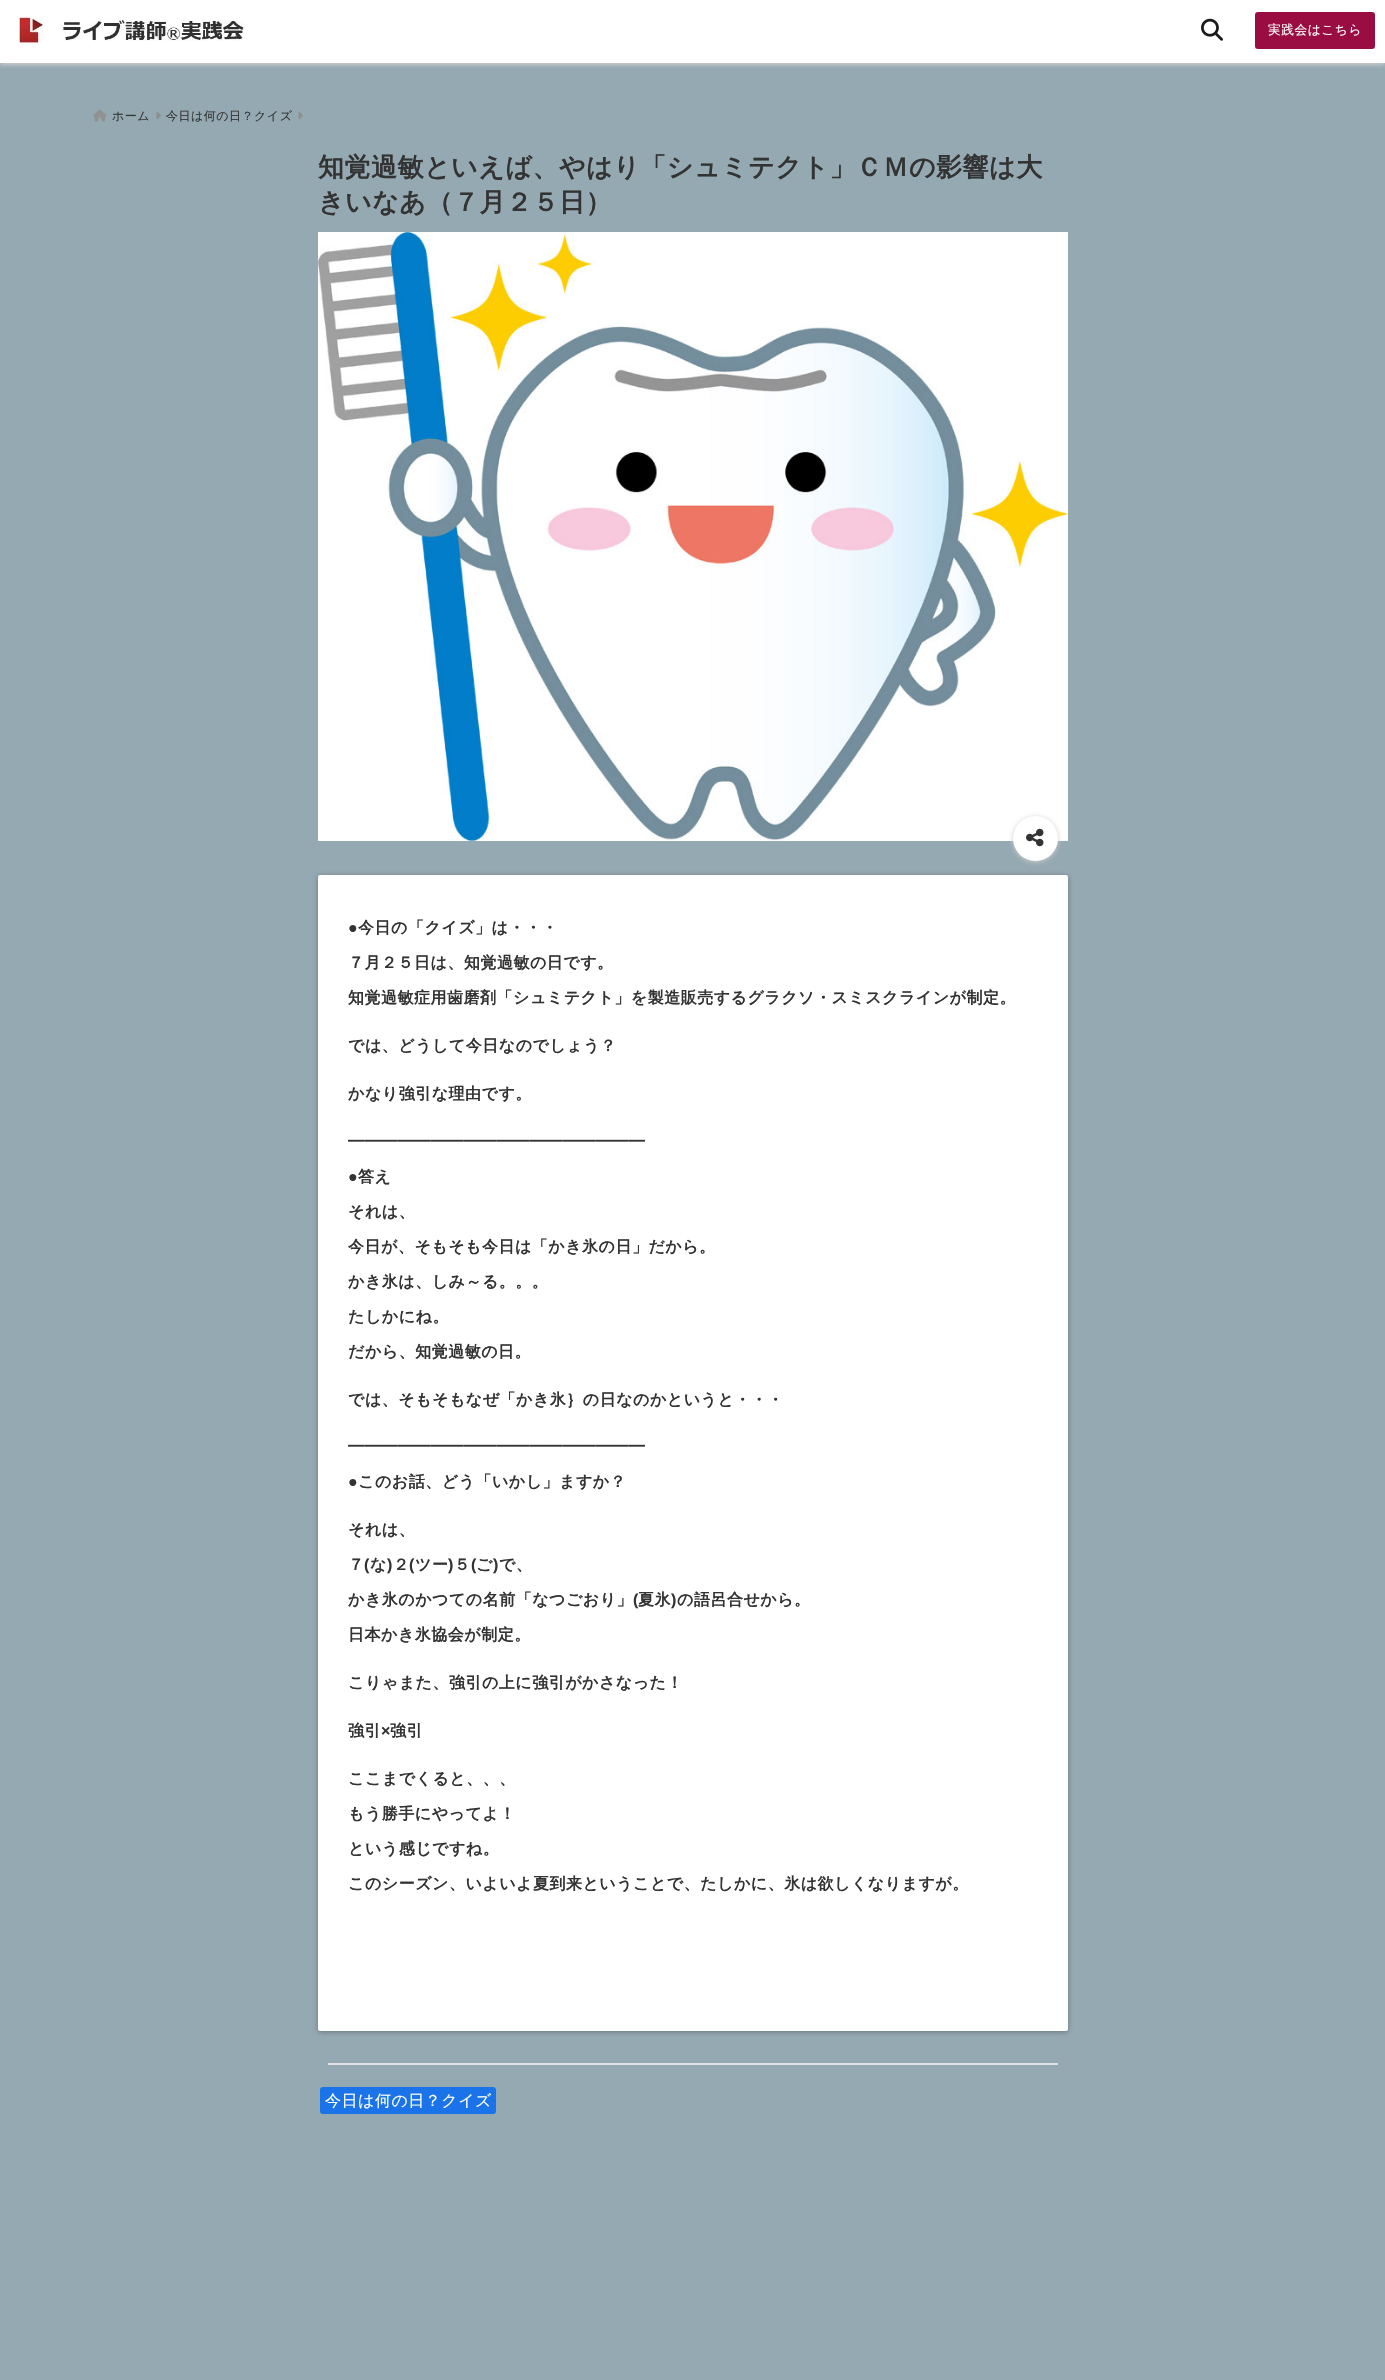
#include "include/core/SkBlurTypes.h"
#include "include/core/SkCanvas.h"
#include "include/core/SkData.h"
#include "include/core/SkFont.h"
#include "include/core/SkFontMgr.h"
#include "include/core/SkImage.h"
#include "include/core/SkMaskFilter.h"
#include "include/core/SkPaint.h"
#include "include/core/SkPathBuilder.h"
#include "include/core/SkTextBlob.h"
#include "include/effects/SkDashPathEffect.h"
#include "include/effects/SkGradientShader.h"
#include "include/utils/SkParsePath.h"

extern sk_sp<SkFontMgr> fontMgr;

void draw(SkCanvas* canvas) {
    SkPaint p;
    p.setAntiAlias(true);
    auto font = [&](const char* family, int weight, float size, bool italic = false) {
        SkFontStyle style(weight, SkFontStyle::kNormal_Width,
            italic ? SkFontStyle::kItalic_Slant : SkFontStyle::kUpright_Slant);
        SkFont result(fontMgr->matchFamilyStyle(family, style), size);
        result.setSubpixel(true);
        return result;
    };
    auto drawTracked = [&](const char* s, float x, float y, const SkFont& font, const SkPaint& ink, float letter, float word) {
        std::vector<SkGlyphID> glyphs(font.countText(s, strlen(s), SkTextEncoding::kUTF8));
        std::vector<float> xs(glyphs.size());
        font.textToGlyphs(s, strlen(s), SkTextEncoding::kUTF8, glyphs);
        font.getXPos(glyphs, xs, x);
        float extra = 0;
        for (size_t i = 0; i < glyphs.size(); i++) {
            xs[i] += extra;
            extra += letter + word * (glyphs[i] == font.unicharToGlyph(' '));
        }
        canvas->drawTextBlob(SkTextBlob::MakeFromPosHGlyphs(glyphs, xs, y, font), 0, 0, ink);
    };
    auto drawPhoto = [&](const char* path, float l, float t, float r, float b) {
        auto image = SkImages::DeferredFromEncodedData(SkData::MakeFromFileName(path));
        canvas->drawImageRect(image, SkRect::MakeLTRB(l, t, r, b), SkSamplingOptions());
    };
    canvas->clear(0xFF95A9B2);
    p.setColor(0xFFCCCCCC);
    p.setMaskFilter(SkMaskFilter::MakeBlur(kNormal_SkBlurStyle, 2));
    canvas->drawRect(SkRect::MakeLTRB(0, 2, 1385, 65), p);
    p.setMaskFilter(nullptr);
    p.setColor(0xFFFFFFFF);
    canvas->drawRect(SkRect::MakeLTRB(0, 0, 1385, 63), p);
    drawPhoto("media/1.png", 19, 17, 244, 44);
    drawPhoto("media/2.png", 1201, 18, 1223, 41);
    p.setColor(0xFF9A0D42);
    canvas->drawRoundRect(SkRect::MakeLTRB(1255, 12, 1375, 49), 3, 3, p);
    auto font1 = font("WenQuanYi Zen Hei", 500, 12.75f);
    p.setColor(0xFFFFFFFF);
    drawTracked("実践会はこちら", 1268, 34, font1, p, 0.5f, 0);
    drawPhoto("media/3.png", 93, 109, 107, 122);
    auto font2 = font("WenQuanYi Zen Hei", 500, 12);
    p.setColor(0xFF333333);
    drawTracked("ホーム", 112, 120, font2, p, 0.5f, 0);
    drawPhoto("media/4.png", 156, 111, 161, 120);
    drawTracked("今日は何の日？クイズ", 166, 120, font2, p, 0.5f, 0);
    drawPhoto("media/4.png", 298, 111, 303, 120);
    auto font3 = font("WenQuanYi Zen Hei", 700, 26);
    drawTracked("知覚過敏といえば、やはり「シュミテクト」ＣＭの影響は大", 318, 176, font3, p, 0.5f, 0);
    drawTracked("きいなあ（７月２５日）", 318, 211, font3, p, 0.5f, 0);
    drawPhoto("media/5.png", 318, 232, 1068, 841);
    p.setColor(0xFFCCCCCC);
    p.setMaskFilter(SkMaskFilter::MakeBlur(kNormal_SkBlurStyle, 2.5f));
    canvas->drawRoundRect(SkRect::MakeLTRB(1013, 817, 1058, 862), 22.5f, 22.5f, p);
    p.setMaskFilter(nullptr);
    p.setColor(0xFFFFFFFF);
    canvas->drawCircle(1035.5f, 838.5f, 22.5f, p);
    drawPhoto("media/6.png", 1026, 828, 1044, 847);
    p.setColor(0x4D000000);
    p.setMaskFilter(SkMaskFilter::MakeBlur(kNormal_SkBlurStyle, 2.5f));
    canvas->drawRoundRect(SkRect::MakeLTRB(318, 876, 1068, 2032), 2, 2, p);
    p.setMaskFilter(nullptr);
    p.setColor(0xFFFFFFFF);
    canvas->drawRoundRect(SkRect::MakeLTRB(318, 875, 1068, 2031), 2, 2, p);
    auto font4 = font("Liberation Sans", 700, 16);
    p.setColor(0xFF333333);
    drawTracked("●", 348, 933, font4, p, 0.5f, 0);
    auto font5 = font("WenQuanYi Zen Hei", 700, 16);
    {
        const struct { const char* s; float x, y; } items[] = {
            {"今日の「クイズ」は・・・", 358, 933},
            {"７月２５日は、知覚過敏の日です。", 348, 968},
            {"知覚過敏症用歯磨剤「シュミテクト」を製造販売するグラクソ・スミスクラインが制定。", 348, 1003},
            {"では、どうして今日なのでしょう？", 348, 1051},
            {"かなり強引な理由です。", 348, 1099},
            {"━━━━━━━━━━━━━━━━━━", 348, 1147},
        };
        for (auto [s, x, y] : items) {
            drawTracked(s, x, y, font5, p, 0.5f, 0);
        }
    }
    drawTracked("●", 348, 1182, font4, p, 0.5f, 0);
    {
        const struct { const char* s; float x, y; } items[] = {
            {"答え", 358, 1182},
            {"それは、", 348, 1217},
            {"今日が、そもそも今日は「かき氷の日」だから。", 348, 1252},
            {"かき氷は、しみ～る。。。", 348, 1287},
            {"たしかにね。", 348, 1322},
            {"だから、知覚過敏の日。", 348, 1357},
            {"では、そもそもなぜ「かき氷｝の日なのかというと・・・", 348, 1405},
            {"━━━━━━━━━━━━━━━━━━", 348, 1452},
        };
        for (auto [s, x, y] : items) {
            drawTracked(s, x, y, font5, p, 0.5f, 0);
        }
    }
    drawTracked("●", 348, 1487, font4, p, 0.5f, 0);
    {
        const struct { const char* s; float x, y; } items[] = {
            {"このお話、どう「いかし」ますか？", 358, 1487},
            {"それは、", 348, 1535},
            {"７", 348, 1570},
        };
        for (auto [s, x, y] : items) {
            drawTracked(s, x, y, font5, p, 0.5f, 0);
        }
    }
    drawTracked("(", 364, 1570, font4, p, 0.5f, 0);
    drawTracked("な", 370, 1570, font5, p, 0.5f, 0);
    drawTracked(")", 387, 1570, font4, p, 0.5f, 0);
    drawTracked("２", 393, 1570, font5, p, 0.5f, 0);
    drawTracked("(", 409, 1570, font4, p, 0.5f, 0);
    drawTracked("ツー", 415, 1570, font5, p, 0.5f, 0);
    drawTracked(")", 448, 1570, font4, p, 0.5f, 0);
    drawTracked("５", 454, 1570, font5, p, 0.5f, 0);
    drawTracked("(", 471, 1570, font4, p, 0.5f, 0);
    drawTracked("ご", 476, 1570, font5, p, 0.5f, 0);
    drawTracked(")", 493, 1570, font4, p, 0.5f, 0);
    drawTracked("で、", 499, 1570, font5, p, 0.5f, 0);
    drawTracked("かき氷のかつての名前「なつごおり」", 348, 1605, font5, p, 0.5f, 0);
    drawTracked("(", 633, 1605, font4, p, 0.5f, 0);
    drawTracked("夏氷", 638, 1605, font5, p, 0.5f, 0);
    drawTracked(")", 671, 1605, font4, p, 0.5f, 0);
    {
        const struct { const char* s; float x, y; } items[] = {
            {"の語呂合せから。", 677, 1605},
            {"日本かき氷協会が制定。", 348, 1640},
            {"こりゃまた、強引の上に強引がかさなった！", 348, 1688},
            {"強引", 348, 1736},
        };
        for (auto [s, x, y] : items) {
            drawTracked(s, x, y, font5, p, 0.5f, 0);
        }
    }
    drawTracked("×", 381, 1736, font4, p, 0.5f, 0);
    {
        const struct { const char* s; float x, y; } items[] = {
            {"強引", 390, 1736},
            {"ここまでくると、、、", 348, 1784},
            {"もう勝手にやってよ！", 348, 1819},
            {"という感じですね。", 348, 1854},
            {"このシーズン、いよいよ夏到来ということで、たしかに、氷は欲しくなりますが。", 348, 1889},
        };
        for (auto [s, x, y] : items) {
            drawTracked(s, x, y, font5, p, 0.5f, 0);
        }
    }
    p.setColor(0xFFE0E0E0);
    canvas->drawRect(SkRect::MakeLTRB(328, 2063, 1058, 2065), p);
    p.setColor(0xFF1A73E8);
    canvas->drawRoundRect(SkRect::MakeLTRB(320, 2087, 496, 2114), 3, 3, p);
    auto font6 = font("WenQuanYi Zen Hei", 500, 16);
    p.setColor(0xFFFFFFFF);
    drawTracked("今日は何の日？クイズ", 325, 2106, font6, p, 0.5f, 0);
}
